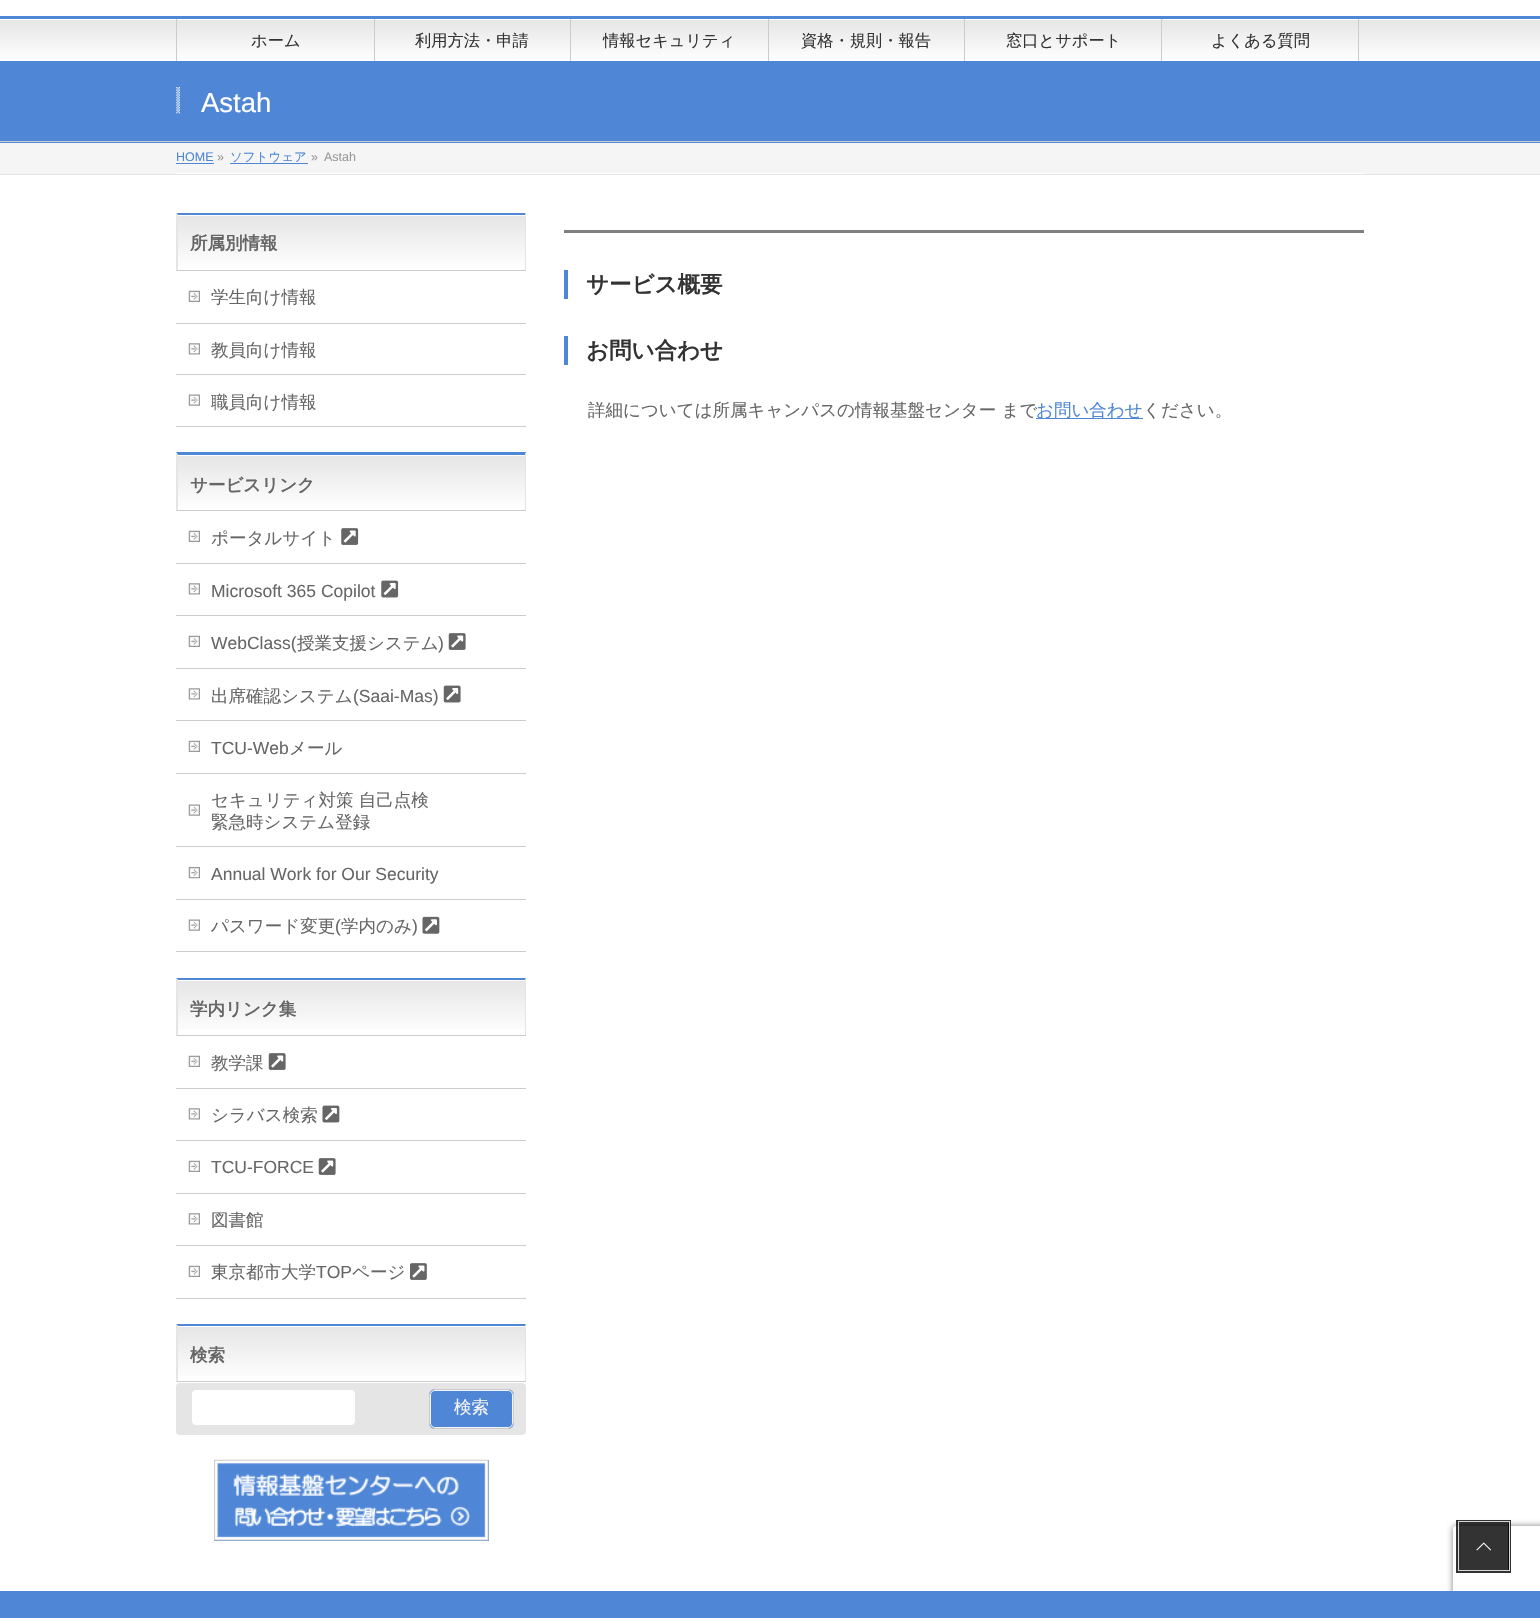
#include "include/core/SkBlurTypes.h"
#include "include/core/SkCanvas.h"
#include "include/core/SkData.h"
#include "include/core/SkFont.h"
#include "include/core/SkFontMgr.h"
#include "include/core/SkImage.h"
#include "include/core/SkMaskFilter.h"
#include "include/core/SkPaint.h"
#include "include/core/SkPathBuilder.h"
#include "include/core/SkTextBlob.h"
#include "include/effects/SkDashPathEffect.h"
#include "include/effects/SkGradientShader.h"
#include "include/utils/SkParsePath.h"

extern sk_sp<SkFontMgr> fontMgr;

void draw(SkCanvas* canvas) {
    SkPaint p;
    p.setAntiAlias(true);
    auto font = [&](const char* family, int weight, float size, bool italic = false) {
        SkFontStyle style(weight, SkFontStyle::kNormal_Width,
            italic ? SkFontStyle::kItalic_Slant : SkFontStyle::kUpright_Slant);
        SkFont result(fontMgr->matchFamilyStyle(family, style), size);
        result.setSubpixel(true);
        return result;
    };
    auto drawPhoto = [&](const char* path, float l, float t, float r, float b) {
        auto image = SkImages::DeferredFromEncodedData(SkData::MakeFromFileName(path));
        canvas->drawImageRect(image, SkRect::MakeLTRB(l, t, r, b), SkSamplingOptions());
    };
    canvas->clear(0xFFFFFFFF);
    {
        const SkColor colors[] = {0xFFE5E5E5, 0xFFFFFFFF};
        const float stops[] = {0, 1};
        const SkPoint ends[] = {{770, 19}, {770, 61}};
        p.setShader(SkGradientShader::MakeLinear(ends, colors, stops, 2, SkTileMode::kClamp));
        p.setAlpha(255);
    }
    canvas->drawRect(SkRect::MakeLTRB(0, 20, 1540, 57), p);
    p.setShader(nullptr);
    {
        const struct { float l, t, r, b; SkColor color; } items[] = {
            {0, 16, 1540, 19, 0xFF4F87D6},
            {176, 19, 177, 61, 0xFFCCCCCC},
            {374, 19, 375, 61, 0xFFCCCCCC},
        };
        for (auto [l, t, r, b, color] : items) {
            p.setColor(color);
            canvas->drawRect(SkRect::MakeLTRB(l, t, r, b), p);
        }
    }
    auto font1 = font("WenQuanYi Zen Hei", 500, 16.25f);
    p.setColor(0xFF333333);
    canvas->drawString("ホーム", 251, 46, font1, p);
    p.setColor(0xFFCCCCCC);
    canvas->drawRect(SkRect::MakeLTRB(570, 19, 571, 61), p);
    p.setColor(0xFF333333);
    canvas->drawString("利用方法・申請", 415, 46, font1, p);
    p.setColor(0xFFCCCCCC);
    canvas->drawRect(SkRect::MakeLTRB(768, 19, 769, 61), p);
    p.setColor(0xFF333333);
    canvas->drawString("情報セキュリティ", 603, 46, font1, p);
    p.setColor(0xFFCCCCCC);
    canvas->drawRect(SkRect::MakeLTRB(964, 19, 965, 61), p);
    p.setColor(0xFF333333);
    canvas->drawString("資格・規則・報告", 801, 46, font1, p);
    {
        const SkColor colors[] = {0xFFE5E5E5, 0xFFFFFFFF};
        const float stops[] = {0, 1};
        const SkPoint ends[] = {{965, 19}, {965, 61}};
        p.setShader(SkGradientShader::MakeLinear(ends, colors, stops, 2, SkTileMode::kClamp));
        p.setAlpha(255);
    }
    canvas->drawRect(SkRect::MakeLTRB(965, 19, 1163, 20), p);
    p.setShader(nullptr);
    p.setColor(0xFFFFFFFF);
    canvas->drawRect(SkRect::MakeLTRB(965, 19, 1161, 20), p);
    p.setColor(0xFFCCCCCC);
    canvas->drawRect(SkRect::MakeLTRB(1161, 19, 1162, 61), p);
    p.setColor(0xFF333333);
    canvas->drawString("窓口とサポート", 1006, 46, font1, p);
    p.setColor(0xFFCCCCCC);
    canvas->drawRect(SkRect::MakeLTRB(1358, 19, 1359, 61), p);
    p.setColor(0xFF333333);
    canvas->drawString("よくある質問", 1211, 46, font1, p);
    p.setColor(0xFF4F87D6);
    canvas->drawRect(SkRect::MakeLTRB(0, 61, 1540, 143), p);
    p.setColor(0xFFCCCCCC);
    canvas->drawRect(SkRect::MakeLTRB(0, 141, 1540, 142), p);
    drawPhoto("media/1.png", 176, 87, 180, 114);
    auto font2 = font("Liberation Sans", 400, 27.5f);
    p.setColor(0xFFFFFFFF);
    canvas->drawString("Astah", 201, 112, font2, p);
    {
        const struct { float l, t, r, b; SkColor color; } items[] = {
            {0, 143, 1540, 174, 0xFFF5F5F5},
            {0, 174, 1540, 175, 0xFFE5E5E5},
            {176, 173, 1364, 174, 0xFFFFFFFF},
        };
        for (auto [l, t, r, b, color] : items) {
            p.setColor(color);
            canvas->drawRect(SkRect::MakeLTRB(l, t, r, b), p);
        }
    }
    auto font3 = font("Liberation Sans", 400, 12.5f);
    p.setColor(0xFF4F87D6);
    canvas->drawString("HOME", 176, 161, font3, p);
    canvas->drawRect(SkRect::MakeLTRB(176, 163, 214, 164), p);
    p.setColor(0xFF999999);
    canvas->drawString("»", 217, 161, font3, p);
    auto font4 = font("WenQuanYi Zen Hei", 500, 12.5f);
    p.setColor(0xFF4F87D6);
    canvas->drawString("ソフトウェア", 230, 161, font4, p);
    canvas->drawRect(SkRect::MakeLTRB(230, 163, 308, 164), p);
    p.setColor(0xFF999999);
    canvas->drawString("»", 311, 161, font3, p);
    canvas->drawString("Astah", 324, 161, font3, p);
    {
        const SkColor colors[] = {0xFFE5E5E5, 0xFFFFFFFF};
        const float stops[] = {0, 1};
        const SkPoint ends[] = {{178, 215}, {178, 270}};
        p.setShader(SkGradientShader::MakeLinear(ends, colors, stops, 2, SkTileMode::kClamp));
        p.setAlpha(255);
    }
    canvas->drawRect(SkRect::MakeLTRB(178, 216, 525, 265), p);
    canvas->save();
    canvas->clipRect(SkRect::MakeLTRB(176, 213, 526, 1591));
    p.setShader(nullptr);
    p.setColor(0xFF4F87D6);
    canvas->drawPath(SkPathBuilder().moveTo(176, 212).lineTo(526, 212).lineTo(525, 215).lineTo(178, 215).close().detach(), p);
    canvas->restore();
    p.setColor(0xFFE5E5E5);
    canvas->drawPath(SkPathBuilder().moveTo(526, 212).lineTo(526, 271).lineTo(525, 270).lineTo(525, 215).close().detach(), p);
    p.setColor(0xFFCCCCCC);
    canvas->drawRect(SkRect::MakeLTRB(176, 270, 526, 271), p);
    p.setColor(0xFFE5E5E5);
    canvas->drawPath(SkPathBuilder().moveTo(176, 271).lineTo(176, 212).lineTo(178, 215).lineTo(178, 270).close().detach(), p);
    auto font5 = font("WenQuanYi Zen Hei", 700, 17.5f);
    p.setColor(0xFF666666);
    canvas->drawString("所属別情報", 190, 249, font5, p);
    p.setColor(0xFFCCCCCC);
    canvas->drawRect(SkRect::MakeLTRB(176, 323, 526, 324), p);
    drawPhoto("media/2.png", 188, 290, 200, 302);
    auto font6 = font("WenQuanYi Zen Hei", 500, 17.5f);
    p.setColor(0xFF666666);
    canvas->drawString("学生向け情報", 211, 303, font6, p);
    p.setColor(0xFFCCCCCC);
    canvas->drawRect(SkRect::MakeLTRB(176, 374, 526, 375), p);
    drawPhoto("media/3.png", 188, 343, 200, 355);
    p.setColor(0xFF666666);
    canvas->drawString("教員向け情報", 211, 356, font6, p);
    p.setColor(0xFFCCCCCC);
    canvas->drawRect(SkRect::MakeLTRB(176, 426, 526, 427), p);
    drawPhoto("media/4.png", 188, 394, 200, 406);
    p.setColor(0xFF666666);
    canvas->drawString("職員向け情報", 211, 408, font6, p);
    {
        const SkColor colors[] = {0xFFE5E5E5, 0xFFFFFFFF};
        const float stops[] = {0, 1};
        const SkPoint ends[] = {{178, 455}, {178, 510}};
        p.setShader(SkGradientShader::MakeLinear(ends, colors, stops, 2, SkTileMode::kClamp));
        p.setAlpha(255);
    }
    canvas->drawRect(SkRect::MakeLTRB(178, 456, 525, 505), p);
    p.setShader(nullptr);
    p.setColor(0xFF4F87D6);
    canvas->drawPath(SkPathBuilder().moveTo(176, 452).lineTo(526, 452).lineTo(525, 455).lineTo(178, 455).close().detach(), p);
    p.setColor(0xFFE5E5E5);
    canvas->drawPath(SkPathBuilder().moveTo(526, 452).lineTo(526, 511).lineTo(525, 510).lineTo(525, 455).close().detach(), p);
    p.setColor(0xFFCCCCCC);
    canvas->drawRect(SkRect::MakeLTRB(176, 510, 526, 511), p);
    p.setColor(0xFFE5E5E5);
    canvas->drawPath(SkPathBuilder().moveTo(176, 511).lineTo(176, 452).lineTo(178, 455).lineTo(178, 510).close().detach(), p);
    p.setColor(0xFF666666);
    canvas->drawString("サービスリンク", 190, 491, font5, p);
    p.setColor(0xFFCCCCCC);
    canvas->drawRect(SkRect::MakeLTRB(176, 563, 526, 564), p);
    drawPhoto("media/2.png", 188, 530, 200, 542);
    p.setColor(0xFF666666);
    canvas->drawString("ポータルサイト", 211, 544, font6, p);
    drawPhoto("media/5.png", 341, 528, 359, 545);
    p.setColor(0xFFCCCCCC);
    canvas->drawRect(SkRect::MakeLTRB(176, 615, 526, 616), p);
    drawPhoto("media/3.png", 188, 583, 200, 595);
    auto font7 = font("Liberation Sans", 400, 17.5f);
    p.setColor(0xFF666666);
    canvas->drawString("Microsoft 365 Copilot", 211, 597, font7, p);
    drawPhoto("media/6.png", 381, 580, 399, 598);
    p.setColor(0xFFCCCCCC);
    canvas->drawRect(SkRect::MakeLTRB(176, 668, 526, 669), p);
    drawPhoto("media/2.png", 188, 635, 200, 647);
    p.setColor(0xFF666666);
    canvas->drawString("WebClass(", 211, 649, font7, p);
    canvas->drawString("授業支援システム", 297, 649, font6, p);
    canvas->drawString(")", 438, 649, font7, p);
    drawPhoto("media/7.png", 448, 633, 466, 650);
    p.setColor(0xFFCCCCCC);
    canvas->drawRect(SkRect::MakeLTRB(176, 720, 526, 721), p);
    drawPhoto("media/3.png", 188, 688, 200, 700);
    p.setColor(0xFF666666);
    canvas->drawString("出席確認システム", 211, 702, font6, p);
    canvas->drawString("(Saai-Mas)", 353, 702, font7, p);
    drawPhoto("media/8.png", 443, 685, 461, 703);
    p.setColor(0xFFCCCCCC);
    canvas->drawRect(SkRect::MakeLTRB(176, 773, 526, 774), p);
    drawPhoto("media/2.png", 188, 740, 200, 752);
    p.setColor(0xFF666666);
    canvas->drawString("TCU-Web", 211, 754, font7, p);
    canvas->drawString("メール", 289, 754, font6, p);
    p.setColor(0xFFCCCCCC);
    canvas->drawRect(SkRect::MakeLTRB(176, 846, 526, 847), p);
    drawPhoto("media/4.png", 188, 804, 200, 816);
    p.setColor(0xFF666666);
    canvas->drawString("セキュリティ対策 自己点検", 211, 806, font6, p);
    canvas->drawString("緊急時システム登録", 211, 828, font6, p);
    p.setColor(0xFFCCCCCC);
    canvas->drawRect(SkRect::MakeLTRB(176, 899, 526, 900), p);
    drawPhoto("media/9.png", 188, 867, 200, 879);
    p.setColor(0xFF666666);
    canvas->drawString("Annual Work for Our Security", 211, 880, font7, p);
    p.setColor(0xFFCCCCCC);
    canvas->drawRect(SkRect::MakeLTRB(176, 951, 526, 952), p);
    drawPhoto("media/4.png", 188, 919, 200, 931);
    p.setColor(0xFF666666);
    canvas->drawString("パスワード変更", 211, 932, font6, p);
    canvas->drawString("(", 335, 932, font7, p);
    canvas->drawString("学内のみ", 341, 932, font6, p);
    canvas->drawString(")", 412, 932, font7, p);
    drawPhoto("media/10.png", 422, 916, 440, 934);
    {
        const SkColor colors[] = {0xFFE5E5E5, 0xFFFFFFFF};
        const float stops[] = {0, 1};
        const SkPoint ends[] = {{178, 980}, {178, 1035}};
        p.setShader(SkGradientShader::MakeLinear(ends, colors, stops, 2, SkTileMode::kClamp));
        p.setAlpha(255);
    }
    canvas->drawRect(SkRect::MakeLTRB(178, 981, 525, 1030), p);
    p.setShader(nullptr);
    p.setColor(0xFF4F87D6);
    canvas->drawPath(SkPathBuilder().moveTo(176, 978).lineTo(526, 978).lineTo(525, 980).lineTo(178, 980).close().detach(), p);
    p.setColor(0xFFE5E5E5);
    canvas->drawPath(SkPathBuilder().moveTo(526, 978).lineTo(526, 1036).lineTo(525, 1035).lineTo(525, 980).close().detach(), p);
    p.setColor(0xFFCCCCCC);
    canvas->drawRect(SkRect::MakeLTRB(176, 1035, 526, 1036), p);
    p.setColor(0xFFE5E5E5);
    canvas->drawPath(SkPathBuilder().moveTo(176, 1036).lineTo(176, 978).lineTo(178, 980).lineTo(178, 1035).close().detach(), p);
    p.setColor(0xFF666666);
    canvas->drawString("学内リンク集", 190, 1015, font5, p);
    p.setColor(0xFFCCCCCC);
    canvas->drawRect(SkRect::MakeLTRB(176, 1088, 526, 1089), p);
    drawPhoto("media/2.png", 188, 1055, 200, 1067);
    p.setColor(0xFF666666);
    canvas->drawString("教学課", 211, 1069, font6, p);
    drawPhoto("media/7.png", 268, 1053, 286, 1070);
    p.setColor(0xFFCCCCCC);
    canvas->drawRect(SkRect::MakeLTRB(176, 1140, 526, 1141), p);
    drawPhoto("media/3.png", 188, 1108, 200, 1120);
    p.setColor(0xFF666666);
    canvas->drawString("シラバス検索", 211, 1121, font6, p);
    drawPhoto("media/11.png", 322, 1105, 340, 1123);
    p.setColor(0xFFCCCCCC);
    canvas->drawRect(SkRect::MakeLTRB(176, 1193, 526, 1194), p);
    drawPhoto("media/2.png", 188, 1160, 200, 1172);
    p.setColor(0xFF666666);
    canvas->drawString("TCU-FORCE", 211, 1173, font7, p);
    drawPhoto("media/7.png", 318, 1158, 336, 1175);
    p.setColor(0xFFCCCCCC);
    canvas->drawRect(SkRect::MakeLTRB(176, 1245, 526, 1246), p);
    drawPhoto("media/3.png", 188, 1213, 200, 1225);
    p.setColor(0xFF666666);
    canvas->drawString("図書館", 211, 1226, font6, p);
    p.setColor(0xFFCCCCCC);
    canvas->drawRect(SkRect::MakeLTRB(176, 1298, 526, 1299), p);
    drawPhoto("media/2.png", 188, 1265, 200, 1277);
    p.setColor(0xFF666666);
    canvas->drawString("東京都市大学", 211, 1278, font6, p);
    canvas->drawString("TOP", 316, 1278, font7, p);
    canvas->drawString("ページ", 352, 1278, font6, p);
    drawPhoto("media/12.png", 410, 1263, 427, 1280);
    {
        const SkColor colors[] = {0xFFE5E5E5, 0xFFFFFFFF};
        const float stops[] = {0, 1};
        const SkPoint ends[] = {{178, 1326}, {178, 1381}};
        p.setShader(SkGradientShader::MakeLinear(ends, colors, stops, 2, SkTileMode::kClamp));
        p.setAlpha(255);
    }
    canvas->drawRect(SkRect::MakeLTRB(178, 1327, 525, 1376), p);
    p.setShader(nullptr);
    p.setColor(0xFF4F87D6);
    canvas->drawPath(SkPathBuilder().moveTo(176, 1324).lineTo(526, 1324).lineTo(525, 1326).lineTo(178, 1326).close().detach(), p);
    p.setColor(0xFFE5E5E5);
    canvas->drawPath(SkPathBuilder().moveTo(526, 1324).lineTo(526, 1382).lineTo(525, 1381).lineTo(525, 1326).close().detach(), p);
    p.setColor(0xFFCCCCCC);
    canvas->drawRect(SkRect::MakeLTRB(176, 1381, 526, 1382), p);
    p.setColor(0xFFE5E5E5);
    canvas->drawPath(SkPathBuilder().moveTo(176, 1382).lineTo(176, 1324).lineTo(178, 1326).lineTo(178, 1381).close().detach(), p);
    p.setColor(0xFF666666);
    canvas->drawString("検索", 190, 1361, font5, p);
    p.setColor(0xFFE5E5E5);
    canvas->drawRoundRect(SkRect::MakeLTRB(176, 1383, 526, 1435), 4, 4, p);
    p.setColor(0xFFFFFFFF);
    canvas->drawRoundRect(SkRect::MakeLTRB(191.5f, 1389.5f, 355.5f, 1425.5f), 4.5f, 4.5f, p);
    p.setStyle(SkPaint::kStroke_Style);
    p.setStrokeWidth(1);
    p.setColor(0xFFE5E5E5);
    canvas->drawRoundRect(SkRect::MakeLTRB(191.5f, 1389.5f, 355.5f, 1425.5f), 4.5f, 4.5f, p);
    p.setStyle(SkPaint::kFill_Style);
    p.setColor(0xFF4F87D6);
    canvas->drawRoundRect(SkRect::MakeLTRB(429, 1389, 514, 1429), 6, 6, p);
    p.setStyle(SkPaint::kStroke_Style);
    p.setColor(0xFFEDF3FB);
    canvas->drawRoundRect(SkRect::MakeLTRB(430.5f, 1390.5f, 512.5f, 1427.5f), 4.5f, 4.5f, p);
    p.setColor(0xFFCCCCCC);
    canvas->drawRoundRect(SkRect::MakeLTRB(429.5f, 1389.5f, 513.5f, 1428.5f), 5.5f, 5.5f, p);
    p.setStyle(SkPaint::kFill_Style);
    p.setColor(0xFFF5F5F5);
    canvas->drawString("検索", 454, 1413, font6, p);
    p.setColor(0xFF4F87D6);
    canvas->drawRect(SkRect::MakeLTRB(214, 1460, 489, 1541), p);
    drawPhoto("media/13.png", 214, 1459, 489, 1541);
    p.setColor(0xFF808080);
    canvas->drawRect(SkRect::MakeLTRB(564, 230, 1364, 233), p);
    p.setColor(0xFF4F87D6);
    canvas->drawRect(SkRect::MakeLTRB(564, 270, 568, 299), p);
    auto font8 = font("WenQuanYi Zen Hei", 700, 22.5f);
    p.setColor(0xFF333333);
    canvas->drawString("サービス概要", 586, 292, font8, p);
    p.setColor(0xFF4F87D6);
    canvas->drawRect(SkRect::MakeLTRB(564, 336, 568, 365), p);
    p.setColor(0xFF333333);
    canvas->drawString("お問い合わせ", 586, 358, font8, p);
    p.setColor(0xFF666666);
    canvas->drawString("詳細については所属キャンパスの情報基盤センター まで", 588, 416, font6, p);
    p.setColor(0xFF4F87D6);
    canvas->drawRect(SkRect::MakeLTRB(1036, 418, 1143, 419), p);
    canvas->drawString("お問い合わせ", 1036, 416, font6, p);
    p.setColor(0xFF666666);
    canvas->drawString("ください。", 1143, 416, font6, p);
    canvas->save();
    canvas->clipPath(SkPathBuilder(SkPathFillType::kEvenOdd).moveTo(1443, 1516).lineTo(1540, 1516).lineTo(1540, 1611).lineTo(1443, 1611).close().moveTo(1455.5f, 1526).lineTo(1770.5f, 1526).cubicTo(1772, 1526, 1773, 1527, 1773, 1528.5f).lineTo(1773, 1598.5f).cubicTo(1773, 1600, 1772, 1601, 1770.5f, 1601).lineTo(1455.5f, 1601).cubicTo(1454, 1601, 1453, 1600, 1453, 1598.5f).lineTo(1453, 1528.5f).cubicTo(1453, 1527, 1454, 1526, 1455.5f, 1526).close().detach(), true);
    p.setColor(0xFF808080);
    p.setMaskFilter(SkMaskFilter::MakeBlur(kNormal_SkBlurStyle, 3));
    canvas->drawRoundRect(SkRect::MakeLTRB(1453, 1526, 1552, 1601), 2.5f, 2.5f, p);
    p.setMaskFilter(nullptr);
    canvas->restore();
    p.setColor(0xFF4F87D6);
    canvas->drawRect(SkRect::MakeLTRB(0, 1591, 1540, 1618), p);
    p.setStyle(SkPaint::kStroke_Style);
    p.setStrokeWidth(3);
    p.setColor(0xCC000000);
    canvas->drawRect(SkRect::MakeLTRB(1457.5f, 1521.5f, 1509.5f, 1571.5f), p);
    p.setStrokeWidth(1);
    p.setColor(0xCCFFFFFF);
    canvas->drawRect(SkRect::MakeLTRB(1458.5f, 1521.5f, 1509.5f, 1570.5f), p);
    p.setStyle(SkPaint::kFill_Style);
    p.setColor(0xCC000000);
    canvas->drawRect(SkRect::MakeLTRB(1459, 1523, 1509, 1570), p);
    drawPhoto("media/14.png", 1476, 1542, 1491, 1551);
}
